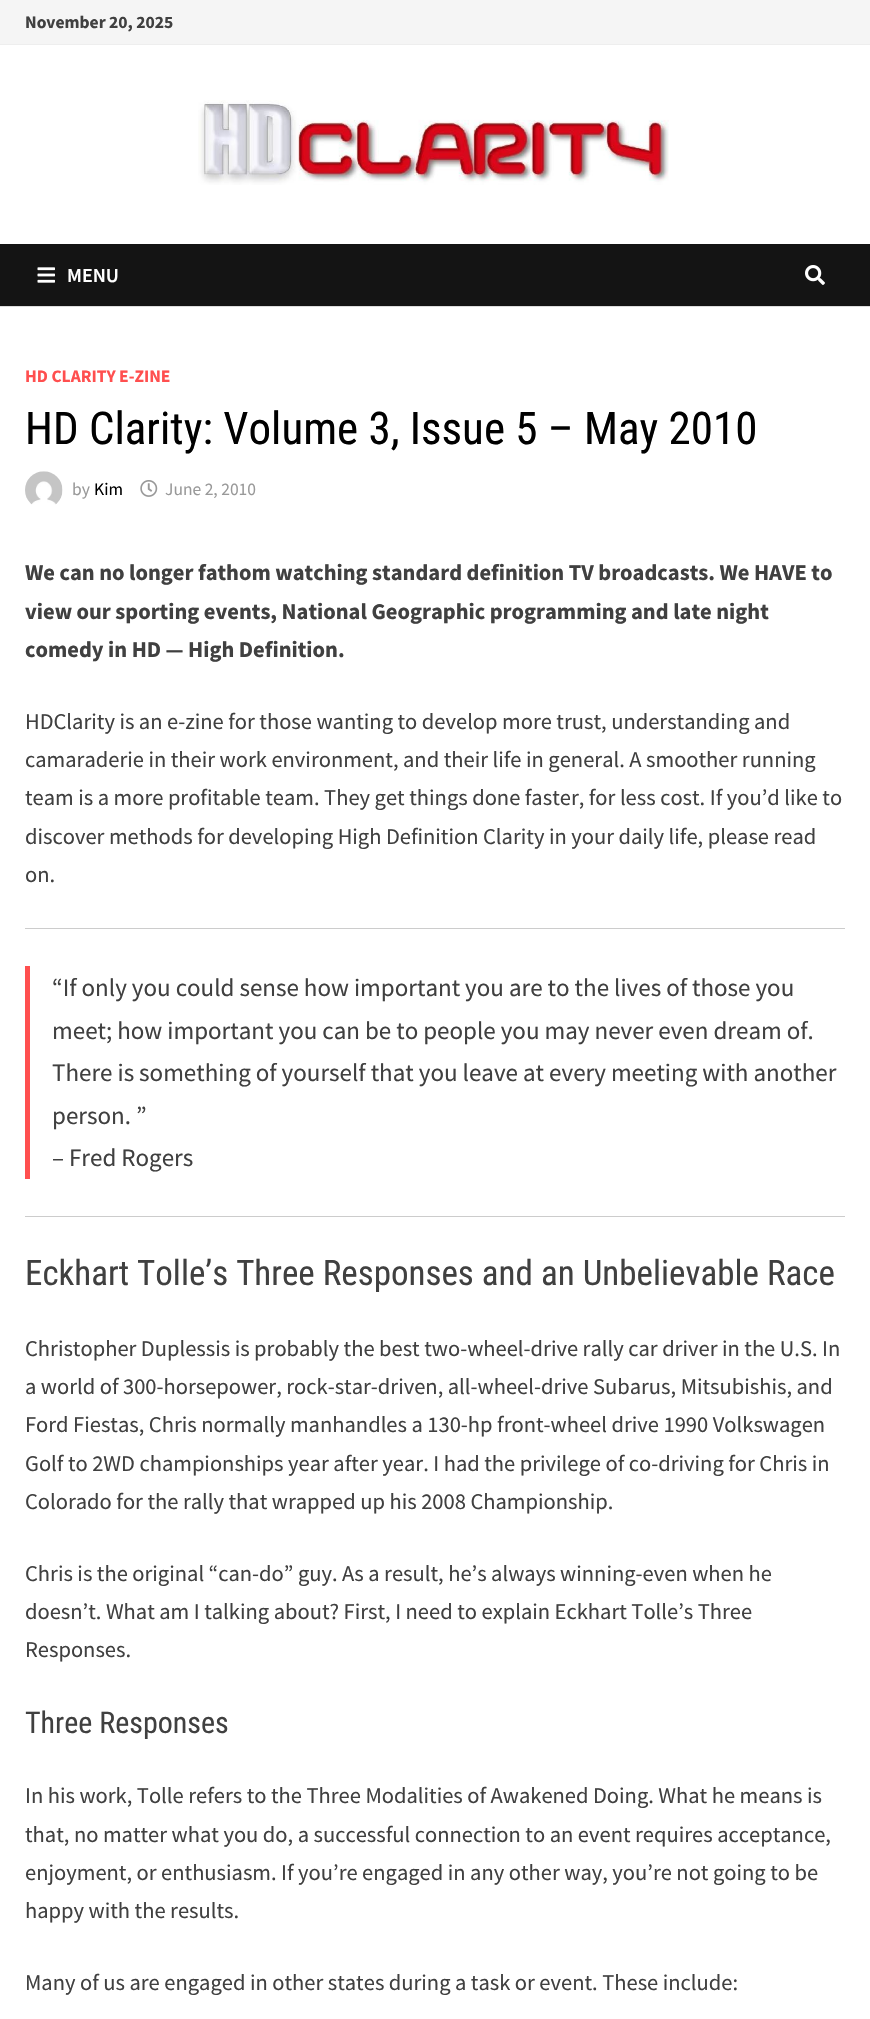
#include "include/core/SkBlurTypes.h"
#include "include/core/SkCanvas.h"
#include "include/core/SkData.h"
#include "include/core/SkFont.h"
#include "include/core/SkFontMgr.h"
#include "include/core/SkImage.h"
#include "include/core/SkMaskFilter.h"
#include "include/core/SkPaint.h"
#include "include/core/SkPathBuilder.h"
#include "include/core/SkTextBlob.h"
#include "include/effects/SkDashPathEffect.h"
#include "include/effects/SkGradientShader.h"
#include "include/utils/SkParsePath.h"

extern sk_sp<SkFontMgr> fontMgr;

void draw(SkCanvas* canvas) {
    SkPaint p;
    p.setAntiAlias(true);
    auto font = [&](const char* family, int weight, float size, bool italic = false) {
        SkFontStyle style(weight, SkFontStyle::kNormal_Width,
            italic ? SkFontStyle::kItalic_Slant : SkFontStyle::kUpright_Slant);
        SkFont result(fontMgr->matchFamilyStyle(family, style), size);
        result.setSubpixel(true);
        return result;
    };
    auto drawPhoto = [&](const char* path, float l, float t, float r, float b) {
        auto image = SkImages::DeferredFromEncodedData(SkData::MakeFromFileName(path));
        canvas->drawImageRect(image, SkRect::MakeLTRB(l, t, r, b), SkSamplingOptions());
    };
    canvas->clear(0xFFFFFFFF);
    p.setColor(0xFFF5F5F5);
    canvas->drawRect(SkRect::MakeLTRB(0, 0, 870, 44), p);
    p.setColor(0xFFEEEEEE);
    canvas->drawRect(SkRect::MakeLTRB(0, 44, 870, 45), p);
    auto font1 = font("Source Sans Pro", 700, 17.5f);
    p.setColor(0xFF404040);
    canvas->drawString("November 20, 2025", 25, 28, font1, p);
    p.setColor(0xFFDDDDDD);
    canvas->drawRect(SkRect::MakeLTRB(0, 306, 870, 307), p);
    drawPhoto("media/1.png", 198, 100, 669, 185);
    p.setColor(0xFF141414);
    canvas->drawRect(SkRect::MakeLTRB(0, 244, 870, 306), p);
    drawPhoto("media/2.png", 37, 267, 55, 283);
    auto font2 = font("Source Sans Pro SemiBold", 600, 20);
    p.setColor(0xFFFFFFFF);
    canvas->drawString("MENU", 67, 282, font2, p);
    drawPhoto("media/3.png", 805, 265, 825, 285);
    p.setColor(0xFFFF4F4F);
    canvas->drawString("HD CLARITY E-ZINE", 25, 382, font1, p);
    auto font3 = font("Roboto Condensed", 400, 45);
    p.setColor(0xFF000000);
    canvas->drawString("HD Clarity: Volume 3, Issue 5 – May 2010", 25, 444, font3, p);
    drawPhoto("media/4.png", 25, 471, 63, 505);
    auto font4 = font("Source Sans Pro", 400, 17.5f);
    p.setColor(0xFF999999);
    canvas->drawString("by", 72, 495, font4, p);
    p.setColor(0xFF000000);
    canvas->drawString("Kim", 94, 495, font4, p);
    drawPhoto("media/5.png", 140, 480, 158, 497);
    p.setColor(0xFF999999);
    canvas->drawString("June 2, 2010", 165, 495, font4, p);
    auto font5 = font("Source Sans Pro", 700, 22.5f);
    p.setColor(0xFF404040);
    {
        const struct { const char* s; float x, y; } items[] = {
            {"We can no longer fathom watching standard definition TV broadcasts. We HAVE to", 25, 580},
            {"view our sporting events, National Geographic programming and late night", 25, 619},
            {"comedy in HD — High Definition.", 25, 657},
        };
        for (auto [s, x, y] : items) {
            canvas->drawString(s, x, y, font5, p);
        }
    }
    auto font6 = font("Source Sans Pro", 400, 22.5f);
    {
        const struct { const char* s; float x, y; } items[] = {
            {"HDClarity is an e-zine for those wanting to develop more trust, understanding and", 25, 729},
            {"camaraderie in their work environment, and their life in general. A smoother running", 25, 767},
            {"team is a more profitable team. They get things done faster, for less cost. If you’d like to", 25, 805},
            {"discover methods for developing High Definition Clarity in your daily life, please read", 25, 844},
            {"on.", 25, 882},
        };
        for (auto [s, x, y] : items) {
            canvas->drawString(s, x, y, font6, p);
        }
    }
    p.setColor(0xFFCCCCCC);
    canvas->drawRect(SkRect::MakeLTRB(25, 928, 845, 929), p);
    p.setColor(0xFFFF4F4F);
    canvas->drawRect(SkRect::MakeLTRB(25, 966, 30, 1179), p);
    auto font7 = font("Source Sans Pro", 400, 25);
    p.setColor(0xFF404040);
    {
        const struct { const char* s; float x, y; } items[] = {
            {"“If only you could sense how important you are to the lives of those you", 52, 996},
            {"meet; how important you can be to people you may never even dream of.", 52, 1039},
            {"There is something of yourself that you leave at every meeting with another", 52, 1081},
            {"person. ”", 52, 1124},
            {"– Fred Rogers", 52, 1166},
        };
        for (auto [s, x, y] : items) {
            canvas->drawString(s, x, y, font7, p);
        }
    }
    p.setColor(0xFFCCCCCC);
    canvas->drawRect(SkRect::MakeLTRB(25, 1216, 845, 1217), p);
    auto font8 = font("Roboto Condensed", 400, 35);
    p.setColor(0xFF404040);
    canvas->drawString("Eckhart Tolle’s Three Responses and an Unbelievable Race", 25, 1285, font8, p);
    {
        const struct { const char* s; float x, y; } items[] = {
            {"Christopher Duplessis is probably the best two-wheel-drive rally car driver in the U.S. In", 25, 1356},
            {"a world of 300-horsepower, rock-star-driven, all-wheel-drive Subarus, Mitsubishis, and", 25, 1394},
            {"Ford Fiestas, Chris normally manhandles a 130-hp front-wheel drive 1990 Volkswagen", 25, 1432},
            {"Golf to 2WD championships year after year. I had the privilege of co-driving for Chris in", 25, 1471},
            {"Colorado for the rally that wrapped up his 2008 Championship.", 25, 1509},
            {"Chris is the original “can-do” guy. As a result, he’s always winning-even when he", 25, 1581},
            {"doesn’t. What am I talking about? First, I need to explain Eckhart Tolle’s Three", 25, 1619},
            {"Responses.", 25, 1657},
        };
        for (auto [s, x, y] : items) {
            canvas->drawString(s, x, y, font6, p);
        }
    }
    auto font9 = font("Roboto Condensed", 400, 30);
    canvas->drawString("Three Responses", 25, 1733, font9, p);
    {
        const struct { const char* s; float x, y; } items[] = {
            {"In his work, Tolle refers to the Three Modalities of Awakened Doing. What he means is", 25, 1803},
            {"that, no matter what you do, a successful connection to an event requires acceptance,", 25, 1842},
            {"enjoyment, or enthusiasm. If you’re engaged in any other way, you’re not going to be", 25, 1880},
            {"happy with the results.", 25, 1918},
            {"Many of us are engaged in other states during a task or event. These include:", 25, 1990},
        };
        for (auto [s, x, y] : items) {
            canvas->drawString(s, x, y, font6, p);
        }
    }
}
